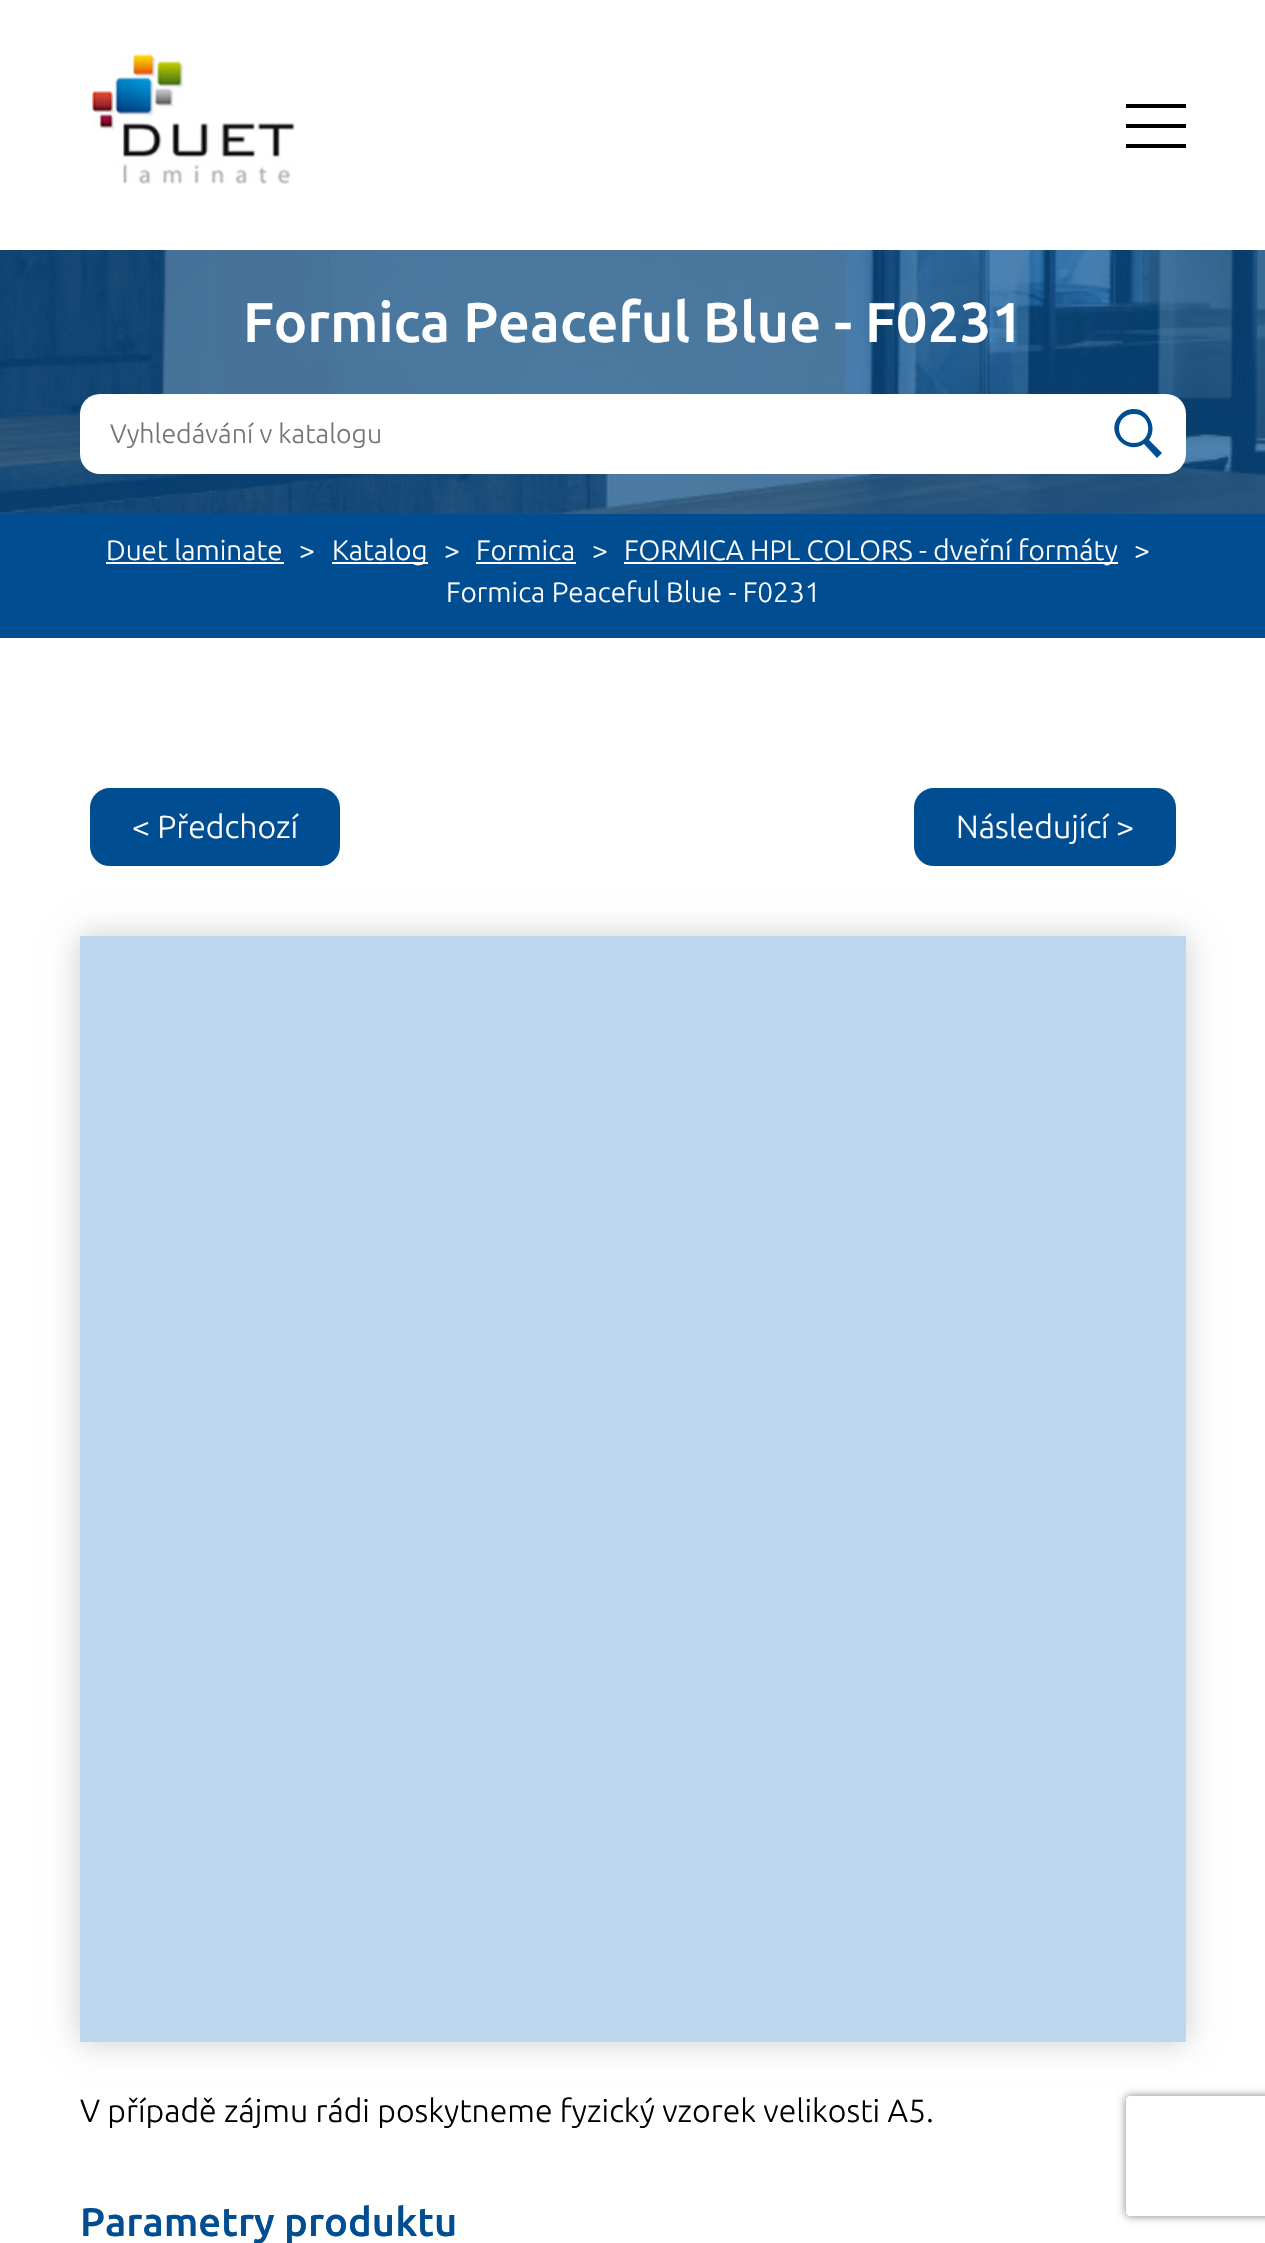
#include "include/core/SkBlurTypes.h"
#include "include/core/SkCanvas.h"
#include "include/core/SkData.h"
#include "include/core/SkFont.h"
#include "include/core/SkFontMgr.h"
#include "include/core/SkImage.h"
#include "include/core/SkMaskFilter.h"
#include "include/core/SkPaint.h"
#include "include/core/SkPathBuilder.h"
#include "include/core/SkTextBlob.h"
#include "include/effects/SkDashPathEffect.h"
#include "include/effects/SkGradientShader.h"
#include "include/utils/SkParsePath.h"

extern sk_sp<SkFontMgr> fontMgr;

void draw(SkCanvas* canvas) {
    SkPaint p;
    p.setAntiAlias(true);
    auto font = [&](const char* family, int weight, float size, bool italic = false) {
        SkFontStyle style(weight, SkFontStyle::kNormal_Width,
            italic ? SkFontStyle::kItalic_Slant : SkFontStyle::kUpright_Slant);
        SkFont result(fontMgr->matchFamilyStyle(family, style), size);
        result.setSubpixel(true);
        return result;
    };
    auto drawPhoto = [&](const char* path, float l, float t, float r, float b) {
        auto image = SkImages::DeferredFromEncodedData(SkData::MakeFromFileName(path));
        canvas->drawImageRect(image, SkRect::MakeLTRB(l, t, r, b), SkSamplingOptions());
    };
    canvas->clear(0xFFFFFFFF);
    drawPhoto("media/1.png", 92, 54, 295, 184);
    {
        const struct { float l, t, r, b; SkColor color; } items[] = {
            {1126, 104, 1186, 108, 0xFF000000},
            {1126, 124, 1186, 128, 0xFF000000},
            {1126, 144, 1186, 148, 0xFF000000},
        };
        for (auto [l, t, r, b, color] : items) {
            p.setColor(color);
            canvas->drawRect(SkRect::MakeLTRB(l, t, r, b), p);
        }
    }
    drawPhoto("media/2.png", 0, 250, 1265, 514);
    p.setColor(0xB3004D91);
    canvas->drawRect(SkRect::MakeLTRB(0, 250, 1265, 514), p);
    auto font1 = font("Ubuntu", 500, 56);
    p.setColor(0xFFFFFFFF);
    canvas->drawString("Formica Peaceful Blue - F0231", 243, 342, font1, p);
    canvas->drawRoundRect(SkRect::MakeLTRB(80, 394, 1186, 474), 20, 20, p);
    auto font2 = font("Ubuntu", 300, 26.75f);
    p.setColor(0xFF757575);
    canvas->drawString("Vyhledávání v katalogu", 110, 443, font2, p);
    p.setColor(0xFF004D91);
    canvas->drawPath(SkPathBuilder().moveTo(1134, 409).cubicTo(1128, 409, 1124, 411, 1120, 415).cubicTo(1104, 431, 1125, 456, 1144, 444).lineTo(1157, 458).lineTo(1162, 453).lineTo(1149, 440).cubicTo(1158, 428, 1149, 409, 1134, 409).close().moveTo(1134, 414).cubicTo(1153, 414, 1153, 443, 1134, 443).cubicTo(1114, 443, 1114, 414, 1134, 414).close().detach(), p);
    canvas->drawRect(SkRect::MakeLTRB(0, 514, 1265, 638), p);
    auto font3 = font("Ubuntu", 300, 28);
    p.setColor(0xFFFFFFFF);
    canvas->drawString("Duet laminate", 106, 560, font3, p);
    canvas->drawRect(SkRect::MakeLTRB(106, 562, 284, 564), p);
    canvas->drawString(">", 299, 560, font3, p);
    canvas->drawRect(SkRect::MakeLTRB(332, 562, 428, 564), p);
    {
        const struct { const char* s; float x, y; } items[] = {
            {"Katalog", 332, 560},
            {">", 444, 560},
            {"Formica", 476, 560},
        };
        for (auto [s, x, y] : items) {
            canvas->drawString(s, x, y, font3, p);
        }
    }
    canvas->drawRect(SkRect::MakeLTRB(476, 562, 576, 564), p);
    canvas->drawString(">", 592, 560, font3, p);
    canvas->drawRect(SkRect::MakeLTRB(624, 562, 1118, 564), p);
    {
        const struct { const char* s; float x, y; } items[] = {
            {"FORMICA HPL COLORS - dveřní formáty", 624, 560},
            {">", 1134, 560},
            {"Formica Peaceful Blue - F0231", 446, 602},
        };
        for (auto [s, x, y] : items) {
            canvas->drawString(s, x, y, font3, p);
        }
    }
    p.setColor(0xFF004D91);
    canvas->drawRoundRect(SkRect::MakeLTRB(91, 789, 339, 865), 19, 19, p);
    p.setStyle(SkPaint::kStroke_Style);
    p.setStrokeWidth(2);
    canvas->drawRoundRect(SkRect::MakeLTRB(91, 789, 339, 865), 19, 19, p);
    auto font4 = font("Ubuntu", 300, 32);
    p.setStyle(SkPaint::kFill_Style);
    p.setColor(0xFFFFFFFF);
    canvas->drawString("< Předchozí", 132, 838, font4, p);
    p.setColor(0xFF004D91);
    canvas->drawRoundRect(SkRect::MakeLTRB(915, 789, 1175, 865), 19, 19, p);
    p.setStyle(SkPaint::kStroke_Style);
    canvas->drawRoundRect(SkRect::MakeLTRB(915, 789, 1175, 865), 19, 19, p);
    p.setStyle(SkPaint::kFill_Style);
    p.setColor(0xFFFFFFFF);
    canvas->drawString("Následující >", 956, 838, font4, p);
    p.setColor(0xFFCCCCCC);
    p.setMaskFilter(SkMaskFilter::MakeBlur(kNormal_SkBlurStyle, 15));
    canvas->drawRect(SkRect::MakeLTRB(80, 936, 1186, 2042), p);
    p.setMaskFilter(nullptr);
    p.setColor(0xFFBDD7EE);
    canvas->drawRect(SkRect::MakeLTRB(80, 936, 1186, 2042), p);
    p.setColor(0xFF000000);
    canvas->drawString("V případě zájmu rádi poskytneme fyzický vzorek velikosti A5.", 80, 2122, font4, p);
    auto font5 = font("Ubuntu", 500, 40);
    p.setColor(0xFF004D91);
    canvas->drawString("Parametry produktu", 80, 2236, font5, p);
    canvas->save();
    canvas->clipPath(SkPathBuilder(SkPathFillType::kEvenOdd).moveTo(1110, 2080).lineTo(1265, 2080).lineTo(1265, 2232).lineTo(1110, 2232).close().moveTo(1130, 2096).lineTo(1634, 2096).cubicTo(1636, 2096, 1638, 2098, 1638, 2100).lineTo(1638, 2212).cubicTo(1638, 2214, 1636, 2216, 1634, 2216).lineTo(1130, 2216).cubicTo(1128, 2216, 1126, 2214, 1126, 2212).lineTo(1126, 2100).cubicTo(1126, 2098, 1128, 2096, 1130, 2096).close().detach(), true);
    p.setColor(0xFF808080);
    p.setMaskFilter(SkMaskFilter::MakeBlur(kNormal_SkBlurStyle, 5));
    canvas->drawRoundRect(SkRect::MakeLTRB(1126, 2096, 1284, 2216), 4, 4, p);
    p.setMaskFilter(nullptr);
    canvas->restore();
}
